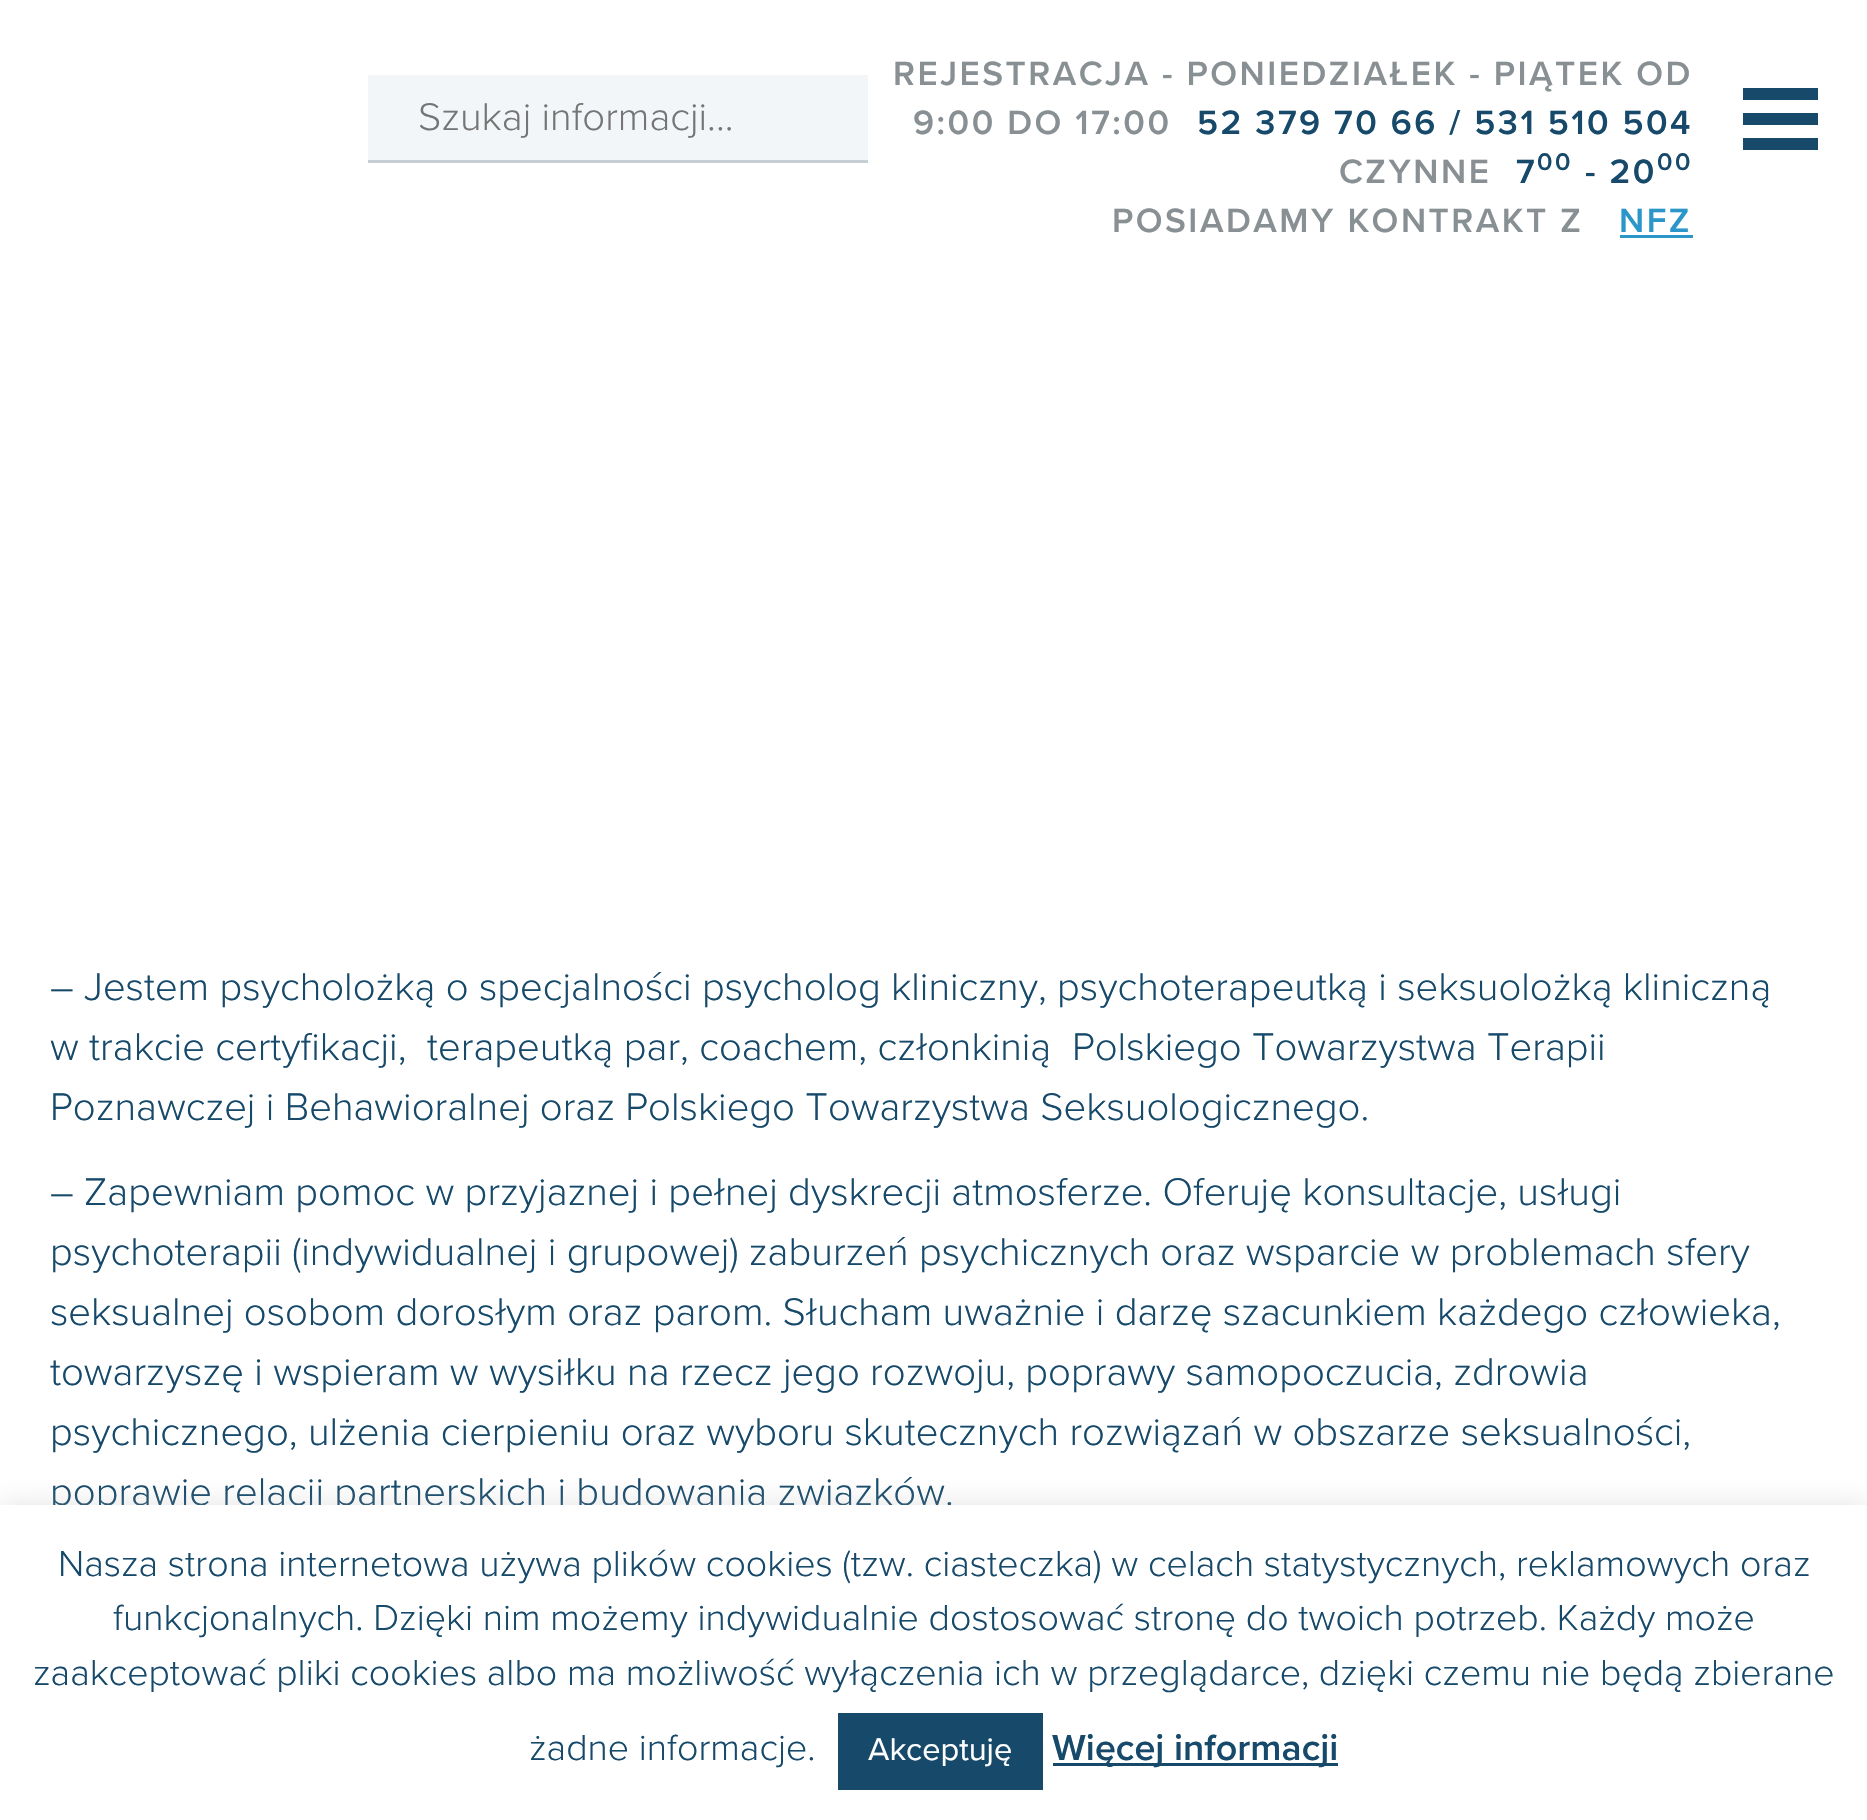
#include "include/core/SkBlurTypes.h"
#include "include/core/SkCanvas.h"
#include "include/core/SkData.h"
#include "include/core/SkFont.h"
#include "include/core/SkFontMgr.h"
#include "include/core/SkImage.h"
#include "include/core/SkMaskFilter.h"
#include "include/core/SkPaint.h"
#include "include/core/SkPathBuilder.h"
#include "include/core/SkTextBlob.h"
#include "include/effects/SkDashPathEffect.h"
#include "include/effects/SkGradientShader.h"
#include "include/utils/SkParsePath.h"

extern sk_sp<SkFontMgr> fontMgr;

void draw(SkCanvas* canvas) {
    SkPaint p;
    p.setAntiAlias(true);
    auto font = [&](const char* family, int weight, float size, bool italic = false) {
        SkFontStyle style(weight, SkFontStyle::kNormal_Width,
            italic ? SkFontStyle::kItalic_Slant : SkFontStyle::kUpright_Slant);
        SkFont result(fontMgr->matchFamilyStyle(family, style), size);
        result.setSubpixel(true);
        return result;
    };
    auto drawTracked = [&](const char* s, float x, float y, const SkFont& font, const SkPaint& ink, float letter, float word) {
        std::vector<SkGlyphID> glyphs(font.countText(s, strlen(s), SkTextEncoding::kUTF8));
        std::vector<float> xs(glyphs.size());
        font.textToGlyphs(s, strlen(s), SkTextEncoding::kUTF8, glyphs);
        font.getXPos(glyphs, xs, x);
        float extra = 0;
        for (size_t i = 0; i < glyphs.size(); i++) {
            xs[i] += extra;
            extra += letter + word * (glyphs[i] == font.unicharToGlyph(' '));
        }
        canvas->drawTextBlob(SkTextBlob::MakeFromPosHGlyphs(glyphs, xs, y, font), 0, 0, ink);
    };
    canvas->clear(0xFFFFFFFF);
    p.setColor(0xFFF3F6F9);
    canvas->drawRect(SkRect::MakeLTRB(368, 75, 868, 160), p);
    p.setColor(0xFFC6CFD4);
    canvas->drawRect(SkRect::MakeLTRB(368, 160, 868, 163), p);
    auto font1 = font("Proxima Nova", 300, 40);
    p.setColor(0xFF757575);
    canvas->drawString("Szukaj informacji...", 418, 130, font1, p);
    auto font2 = font("Proxima Nova", 600, 35);
    p.setColor(0xFF899094);
    drawTracked("REJESTRACJA - PONIEDZIAŁEK - PIĄTEK OD", 893, 85, font2, p, 2.5f, 0);
    drawTracked("9:00 DO 17:00", 913, 134, font2, p, 2.5f, 0);
    p.setColor(0xFF16496A);
    drawTracked("52 379 70 66 / 531 510 504", 1197, 134, font2, p, 2.5f, 0);
    p.setColor(0xFF899094);
    drawTracked("CZYNNE", 1339, 183, font2, p, 2.5f, 0);
    p.setColor(0xFF16496A);
    drawTracked("7", 1516, 183, font2, p, 2.5f, 0);
    auto font3 = font("Proxima Nova", 600, 25);
    drawTracked("00", 1537, 170, font3, p, 2.5f, 0);
    drawTracked("- 20", 1585, 183, font2, p, 2.5f, 0);
    drawTracked("00", 1657, 170, font3, p, 2.5f, 0);
    p.setColor(0xFF899094);
    drawTracked("POSIADAMY KONTRAKT Z", 1112, 232, font2, p, 2.5f, 0);
    p.setColor(0xFF2B96C9);
    drawTracked("NFZ", 1619, 232, font2, p, 2.5f, 0);
    {
        const struct { float l, t, r, b; SkColor color; } items[] = {
            {1620, 235, 1693, 238, 0xFF2B96C9},
            {1743, 88, 1818, 100, 0xFF16496A},
            {1743, 113, 1818, 125, 0xFF16496A},
            {1743, 138, 1818, 150, 0xFF16496A},
        };
        for (auto [l, t, r, b, color] : items) {
            p.setColor(color);
            canvas->drawRect(SkRect::MakeLTRB(l, t, r, b), p);
        }
    }
    {
        const struct { const char* s; float x, y; } items[] = {
            {"– Jestem psycholożką o specjalności psycholog kliniczny, psychoterapeutką i seksuolożką kliniczną", 50, 1000},
            {"w trakcie certyfikacji,  terapeutką par, coachem, członkinią  Polskiego Towarzystwa Terapii", 50, 1060},
            {"Poznawczej i Behawioralnej oraz Polskiego Towarzystwa Seksuologicznego.", 50, 1120},
            {"– Zapewniam pomoc w przyjaznej i pełnej dyskrecji atmosferze. Oferuję konsultacje, usługi", 50, 1205},
            {"psychoterapii (indywidualnej i grupowej) zaburzeń psychicznych oraz wsparcie w problemach sfery", 50, 1265},
            {"seksualnej osobom dorosłym oraz parom. Słucham uważnie i darzę szacunkiem każdego człowieka,", 50, 1325},
            {"towarzyszę i wspieram w wysiłku na rzecz jego rozwoju, poprawy samopoczucia, zdrowia", 50, 1385},
            {"psychicznego, ulżenia cierpieniu oraz wyboru skutecznych rozwiązań w obszarze seksualności,", 50, 1445},
            {"poprawie relacji partnerskich i budowania związków.", 50, 1505},
        };
        for (auto [s, x, y] : items) {
            canvas->drawString(s, x, y, font1, p);
        }
    }
    p.setColor(0x4DACABAB);
    p.setMaskFilter(SkMaskFilter::MakeBlur(kNormal_SkBlurStyle, 12.5f));
    canvas->drawRect(SkRect::MakeLTRB(0, 1503, 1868, 1818), p);
    p.setMaskFilter(nullptr);
    p.setColor(0xFFFFFFFF);
    canvas->drawRect(SkRect::MakeLTRB(0, 1505, 1867, 1820), p);
    auto font4 = font("Proxima Nova", 300, 37.5f);
    p.setColor(0xFF16496A);
    {
        const struct { const char* s; float x, y; } items[] = {
            {"Nasza strona internetowa używa plików cookies (tzw. ciasteczka) w celach statystycznych, reklamowych oraz", 58, 1576},
            {"funkcjonalnych. Dzięki nim możemy indywidualnie dostosować stronę do twoich potrzeb. Każdy może", 113, 1630},
            {"zaakceptować pliki cookies albo ma możliwość wyłączenia ich w przeglądarce, dzięki czemu nie będą zbierane", 33, 1685},
            {"żadne informacje.", 529, 1760},
        };
        for (auto [s, x, y] : items) {
            canvas->drawString(s, x, y, font4, p);
        }
    }
    canvas->drawRect(SkRect::MakeLTRB(838, 1713, 1043, 1790), p);
    auto font5 = font("Proxima Nova", 400, 32.5f);
    p.setColor(0xFFFFFFFF);
    canvas->drawString("Akceptuję", 868, 1760, font5, p);
    p.setColor(0xFF16496A);
    canvas->drawRect(SkRect::MakeLTRB(1053, 1763, 1338, 1766), p);
    auto font6 = font("Proxima Nova", 600, 37.5f);
    canvas->drawString("Więcej informacji", 1052, 1760, font6, p);
}
